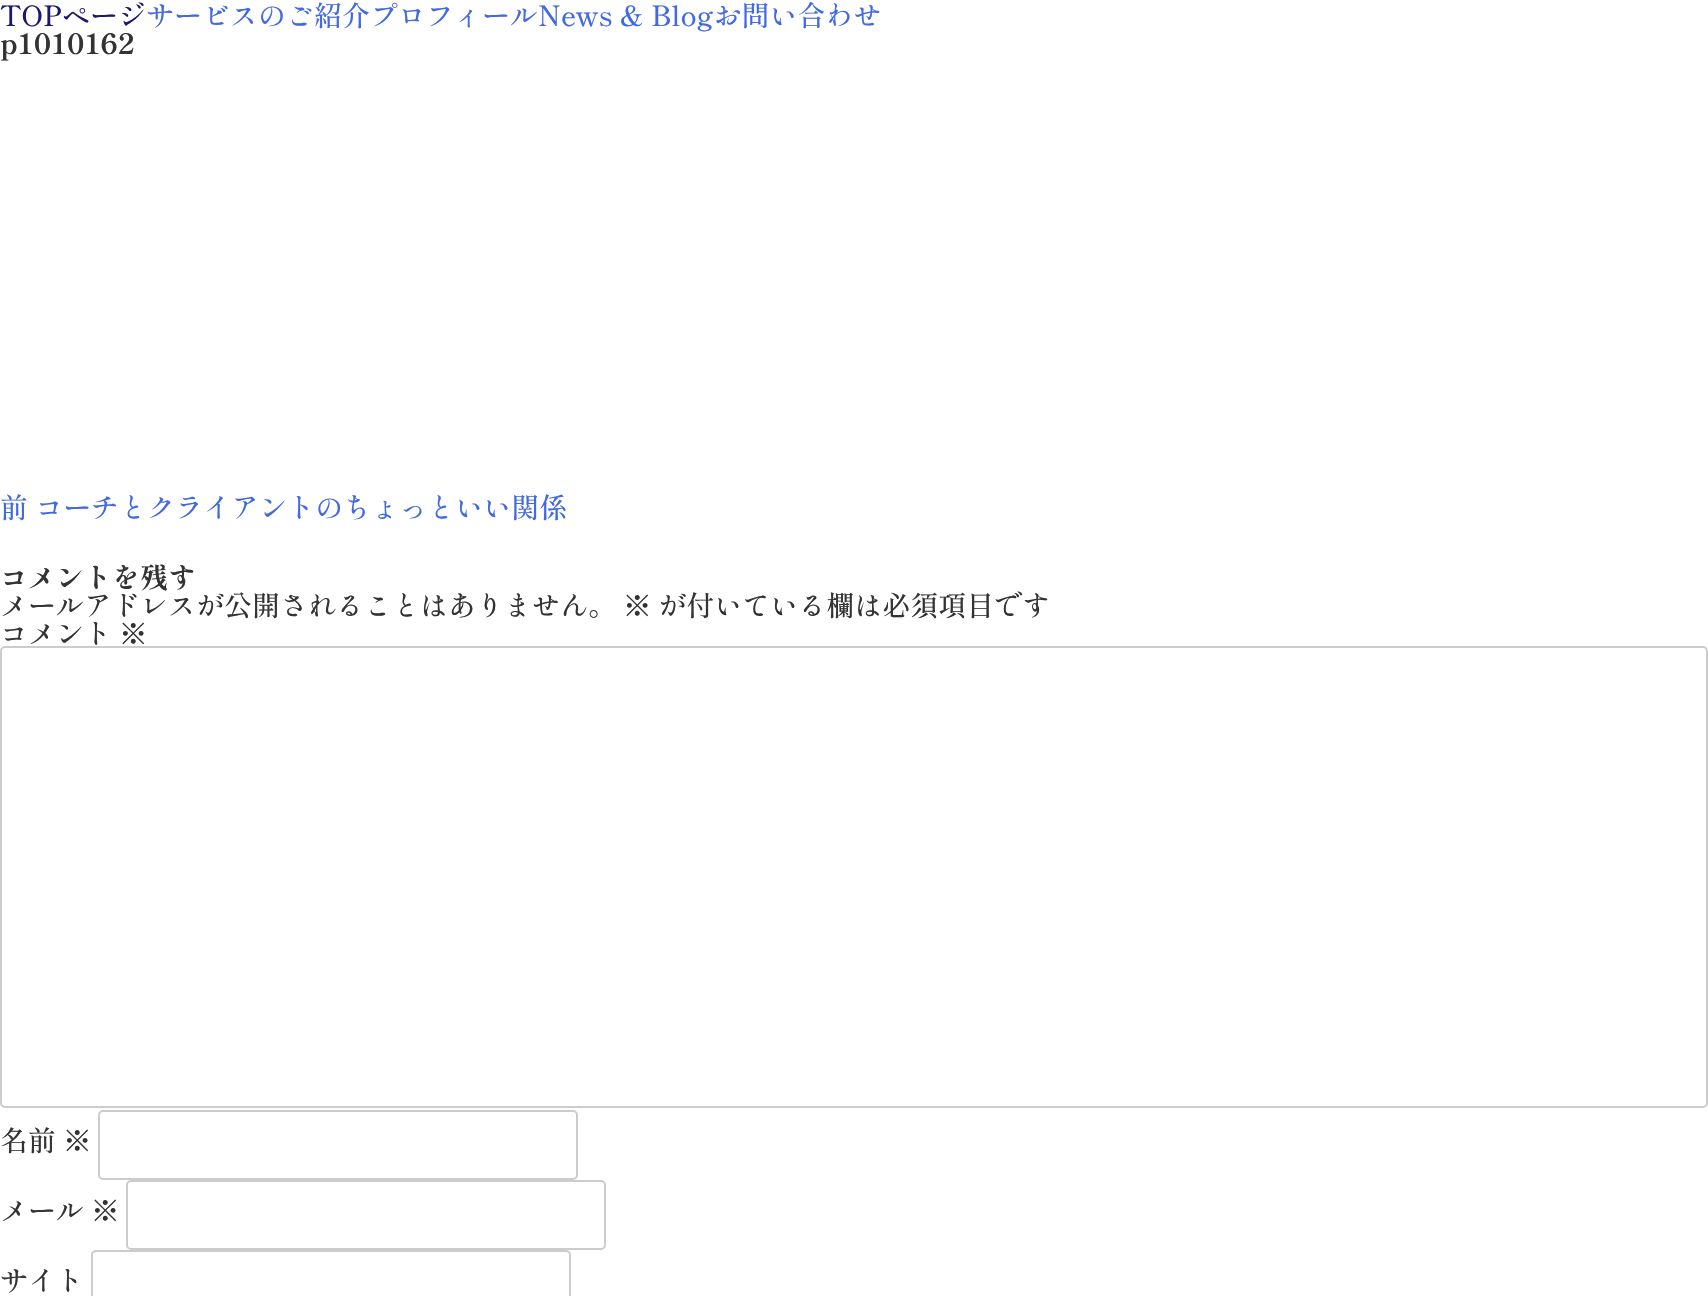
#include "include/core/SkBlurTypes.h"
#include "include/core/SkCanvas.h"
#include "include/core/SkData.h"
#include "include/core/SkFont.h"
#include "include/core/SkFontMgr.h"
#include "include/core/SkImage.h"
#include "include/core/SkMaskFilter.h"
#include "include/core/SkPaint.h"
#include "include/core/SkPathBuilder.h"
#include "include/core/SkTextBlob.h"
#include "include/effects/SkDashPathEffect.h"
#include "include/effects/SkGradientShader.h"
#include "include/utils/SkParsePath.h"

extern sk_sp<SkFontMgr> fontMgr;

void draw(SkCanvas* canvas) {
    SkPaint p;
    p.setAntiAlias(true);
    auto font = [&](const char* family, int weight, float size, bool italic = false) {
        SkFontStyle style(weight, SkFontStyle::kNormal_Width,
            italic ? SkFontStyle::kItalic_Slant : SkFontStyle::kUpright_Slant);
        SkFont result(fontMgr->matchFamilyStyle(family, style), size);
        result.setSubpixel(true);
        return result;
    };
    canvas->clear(0xFFFFFFFF);
    auto font1 = font("Shippori Mincho", 500, 28);
    p.setColor(0xFF191970);
    canvas->drawString("TOPページ", 0, 26, font1, p);
    p.setColor(0xFF4169E1);
    canvas->drawString("サービスのご紹介プロフィールNews & Blogお問い合わせ", 146, 26, font1, p);
    auto font2 = font("Shippori Mincho", 700, 28);
    p.setColor(0xFF333333);
    canvas->drawString("p1010162", 0, 54, font2, p);
    p.setColor(0xFF4169E1);
    canvas->drawString("前 コーチとクライアントのちょっといい関係", 0, 518, font1, p);
    p.setColor(0xFF333333);
    canvas->drawString("コメントを残す", 0, 588, font2, p);
    canvas->drawString("メールアドレスが公開されることはありません。 ※ が付いている欄は必須項目です", 0, 616, font1, p);
    canvas->drawString("コメント ※", 0, 644, font1, p);
    p.setStyle(SkPaint::kStroke_Style);
    p.setStrokeWidth(2);
    p.setColor(0xFFCCCCCC);
    canvas->drawRoundRect(SkRect::MakeLTRB(1, 647, 1707, 1107), 4, 4, p);
    p.setStyle(SkPaint::kFill_Style);
    p.setColor(0xFF333333);
    canvas->drawString("名前 ※", 0, 1151, font1, p);
    p.setStyle(SkPaint::kStroke_Style);
    p.setColor(0xFFCCCCCC);
    canvas->drawRoundRect(SkRect::MakeLTRB(99, 1111, 577, 1179), 4, 4, p);
    p.setStyle(SkPaint::kFill_Style);
    p.setColor(0xFF333333);
    canvas->drawString("メール ※", 0, 1221, font1, p);
    p.setStyle(SkPaint::kStroke_Style);
    p.setColor(0xFFCCCCCC);
    canvas->drawRoundRect(SkRect::MakeLTRB(127, 1181, 605, 1249), 4, 4, p);
    p.setStyle(SkPaint::kFill_Style);
    p.setColor(0xFF333333);
    canvas->drawString("サイト", 0, 1291, font1, p);
    p.setStyle(SkPaint::kStroke_Style);
    p.setColor(0xFFCCCCCC);
    canvas->drawRoundRect(SkRect::MakeLTRB(92, 1251, 570, 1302), 4, 4, p);
}
